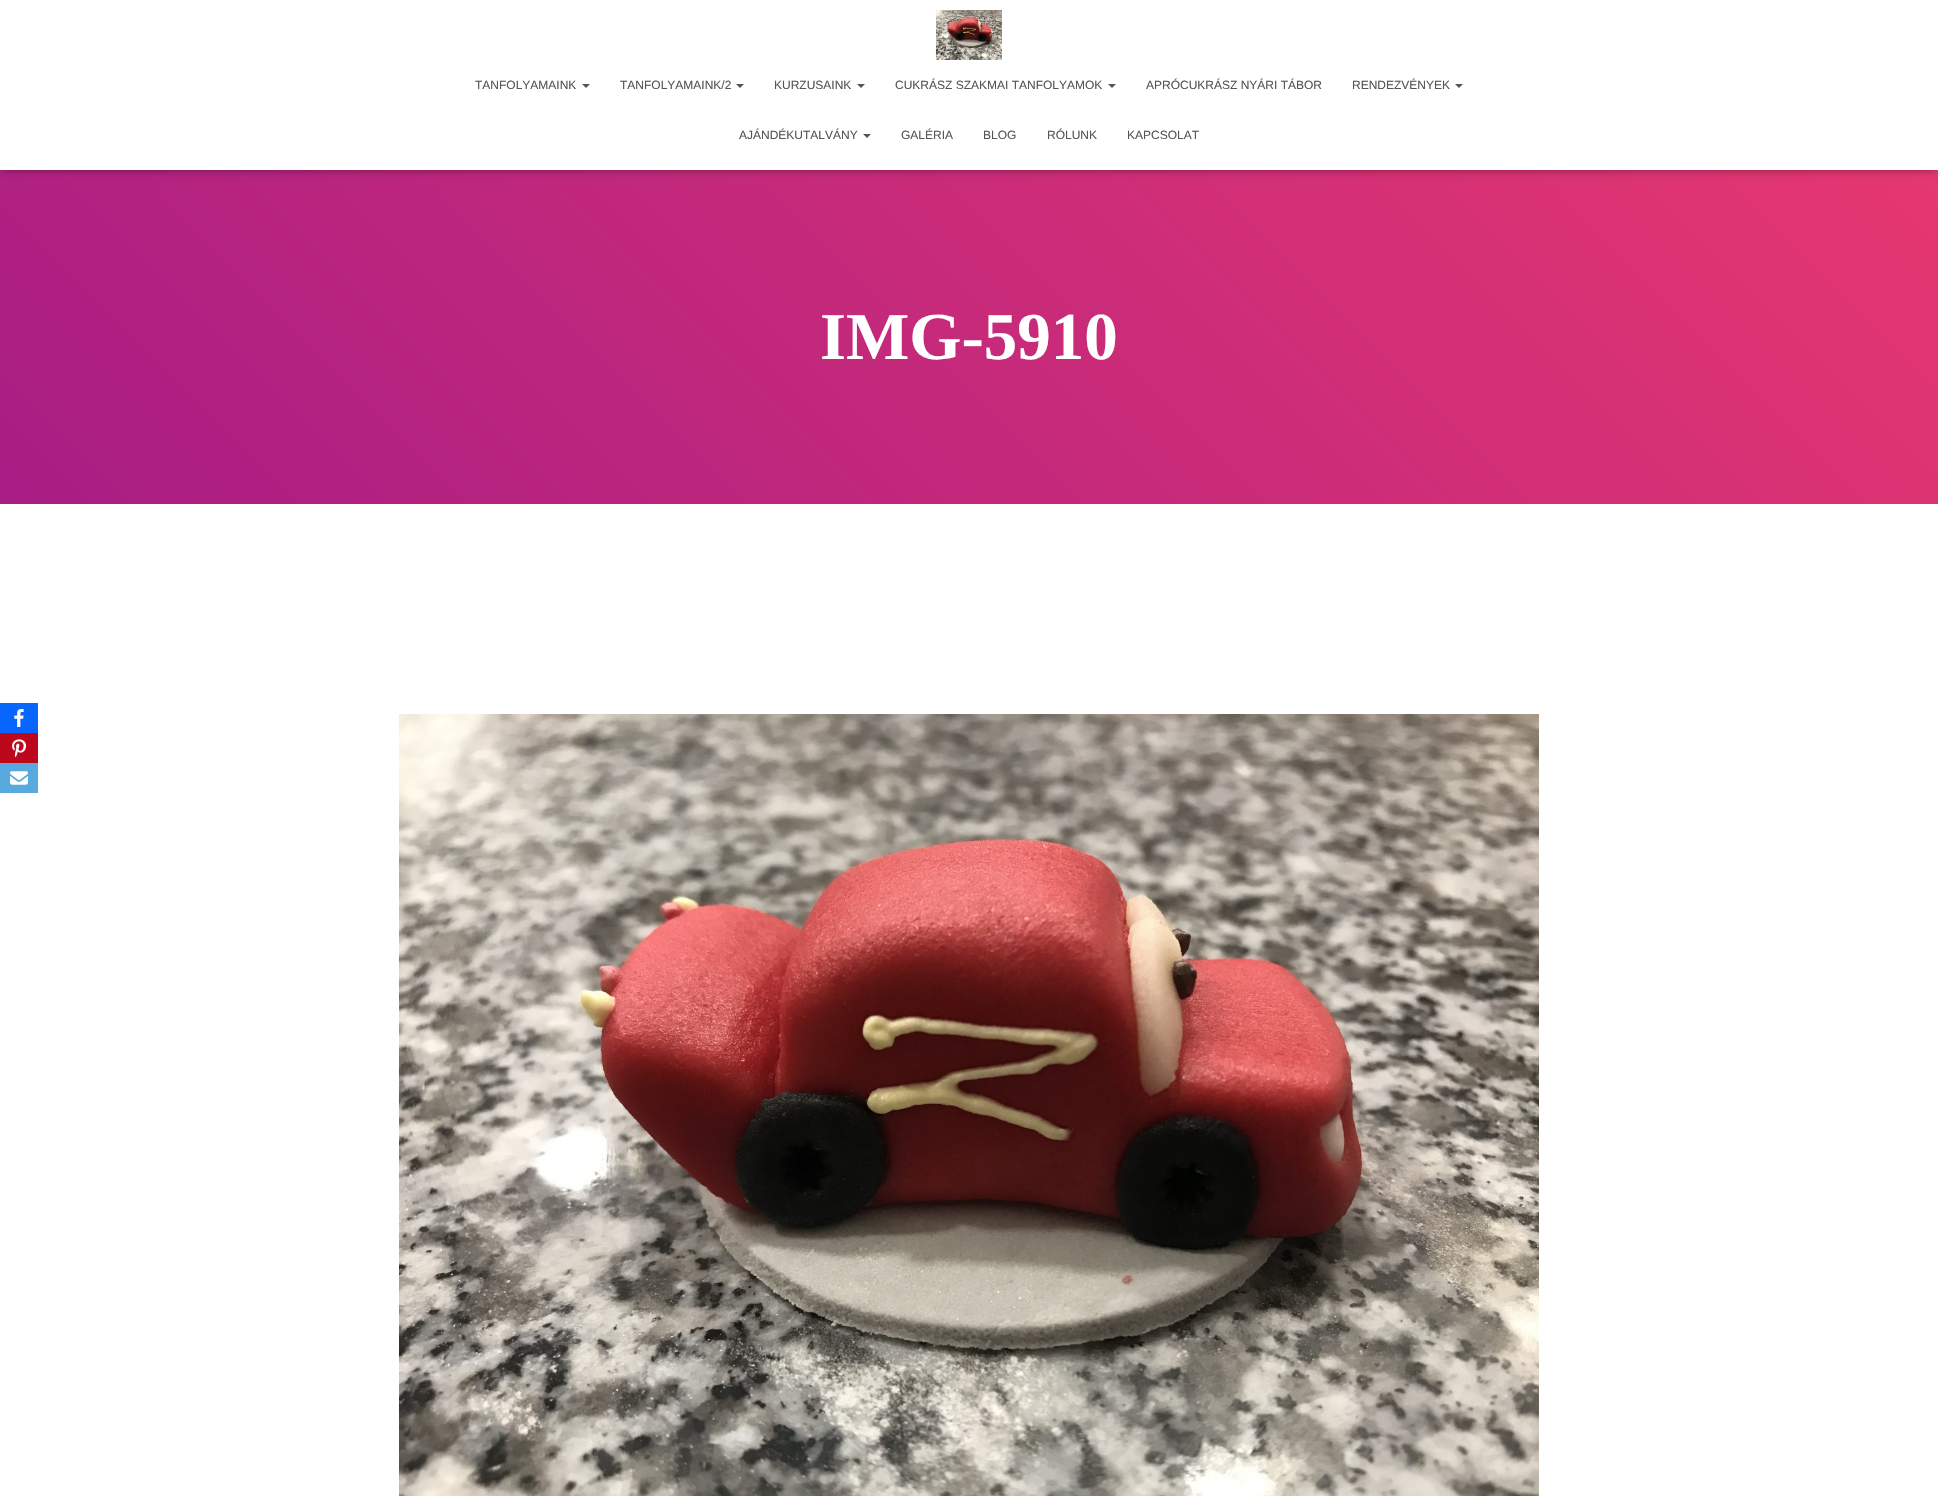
#include "include/core/SkBlurTypes.h"
#include "include/core/SkCanvas.h"
#include "include/core/SkData.h"
#include "include/core/SkFont.h"
#include "include/core/SkFontMgr.h"
#include "include/core/SkImage.h"
#include "include/core/SkMaskFilter.h"
#include "include/core/SkPaint.h"
#include "include/core/SkPathBuilder.h"
#include "include/core/SkTextBlob.h"
#include "include/effects/SkDashPathEffect.h"
#include "include/effects/SkGradientShader.h"
#include "include/utils/SkParsePath.h"

extern sk_sp<SkFontMgr> fontMgr;

void draw(SkCanvas* canvas) {
    SkPaint p;
    p.setAntiAlias(true);
    auto font = [&](const char* family, int weight, float size, bool italic = false) {
        SkFontStyle style(weight, SkFontStyle::kNormal_Width,
            italic ? SkFontStyle::kItalic_Slant : SkFontStyle::kUpright_Slant);
        SkFont result(fontMgr->matchFamilyStyle(family, style), size);
        result.setSubpixel(true);
        return result;
    };
    auto drawPhoto = [&](const char* path, float l, float t, float r, float b) {
        auto image = SkImages::DeferredFromEncodedData(SkData::MakeFromFileName(path));
        canvas->drawImageRect(image, SkRect::MakeLTRB(l, t, r, b), SkSamplingOptions());
    };
    canvas->clear(0xFFFFFFFF);
    {
        const SkColor colors[] = {0xFFA81D84, 0xFFEA396F};
        const float stops[] = {0, 1};
        const SkPoint ends[] = {{359, 863}, {1580, -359}};
        p.setShader(SkGradientShader::MakeLinear(ends, colors, stops, 2, SkTileMode::kClamp));
        p.setAlpha(255);
    }
    canvas->drawRect(SkRect::MakeLTRB(0, 170, 1938, 504), p);
    p.setShader(nullptr);
    p.setColor(0x1A000000);
    p.setMaskFilter(SkMaskFilter::MakeBlur(kNormal_SkBlurStyle, 2.5f));
    canvas->drawRect(SkRect::MakeLTRB(2, 6, 1936, 172), p);
    p.setMaskFilter(nullptr);
    p.setColor(0x1F000000);
    p.setMaskFilter(SkMaskFilter::MakeBlur(kNormal_SkBlurStyle, 5));
    canvas->drawRect(SkRect::MakeLTRB(0, 1, 1938, 171), p);
    p.setMaskFilter(nullptr);
    p.setColor(0x6B000000);
    p.setMaskFilter(SkMaskFilter::MakeBlur(kNormal_SkBlurStyle, 5));
    canvas->drawRect(SkRect::MakeLTRB(6, 7, 1932, 165), p);
    p.setMaskFilter(nullptr);
    p.setColor(0xFFFFFFFF);
    canvas->drawRect(SkRect::MakeLTRB(0, 0, 1938, 170), p);
    drawPhoto("media/1.png", 935, 10, 1002, 60);
    auto font1 = font("Liberation Sans", 400, 12);
    p.setColor(0xFF555555);
    canvas->drawString("TANFOLYAMAINK", 475, 89, font1, p);
    canvas->drawPath(SkPathBuilder().moveTo(582, 84).lineTo(590, 84).lineTo(586, 88).close().detach(), p);
    canvas->drawString("TANFOLYAMAINK/2", 620, 89, font1, p);
    canvas->drawPath(SkPathBuilder().moveTo(736, 84).lineTo(744, 84).lineTo(740, 88).close().detach(), p);
    canvas->drawString("KURZUSAINK", 774, 89, font1, p);
    canvas->drawPath(SkPathBuilder().moveTo(857, 84).lineTo(865, 84).lineTo(861, 88).close().detach(), p);
    canvas->drawString("CUKRÁSZ SZAKMAI TANFOLYAMOK", 895, 89, font1, p);
    canvas->drawPath(SkPathBuilder().moveTo(1108, 84).lineTo(1116, 84).lineTo(1112, 88).close().detach(), p);
    canvas->drawString("APRÓCUKRÁSZ NYÁRI TÁBOR", 1146, 89, font1, p);
    canvas->drawString("RENDEZVÉNYEK", 1352, 89, font1, p);
    canvas->drawPath(SkPathBuilder().moveTo(1455, 84).lineTo(1463, 84).lineTo(1459, 88).close().detach(), p);
    canvas->drawString("AJÁNDÉKUTALVÁNY", 739, 139, font1, p);
    canvas->drawPath(SkPathBuilder().moveTo(863, 134).lineTo(871, 134).lineTo(867, 138).close().detach(), p);
    {
        const struct { const char* s; float x, y; } items[] = {
            {"GALÉRIA", 901, 139},
            {"BLOG", 983, 139},
            {"RÓLUNK", 1047, 139},
            {"KAPCSOLAT", 1127, 139},
        };
        for (auto [s, x, y] : items) {
            canvas->drawString(s, x, y, font1, p);
        }
    }
    auto font2 = font("Liberation Serif", 700, 67);
    p.setColor(0xFFFFFFFF);
    canvas->drawString("IMG-5910", 820, 359, font2, p);
    drawPhoto("media/2.png", 399, 714, 1539, 1496);
    p.setColor(0xFF0866FF);
    canvas->drawRect(SkRect::MakeLTRB(0, 703, 38, 733), p);
    drawPhoto("media/3.png", 14, 709, 24, 727);
    p.setColor(0xFFBD081C);
    canvas->drawRect(SkRect::MakeLTRB(0, 733, 38, 763), p);
    drawPhoto("media/4.png", 12, 739, 27, 757);
    p.setColor(0xFF58A9DE);
    canvas->drawRect(SkRect::MakeLTRB(0, 763, 38, 793), p);
    drawPhoto("media/5.png", 10, 771, 28, 785);
}
